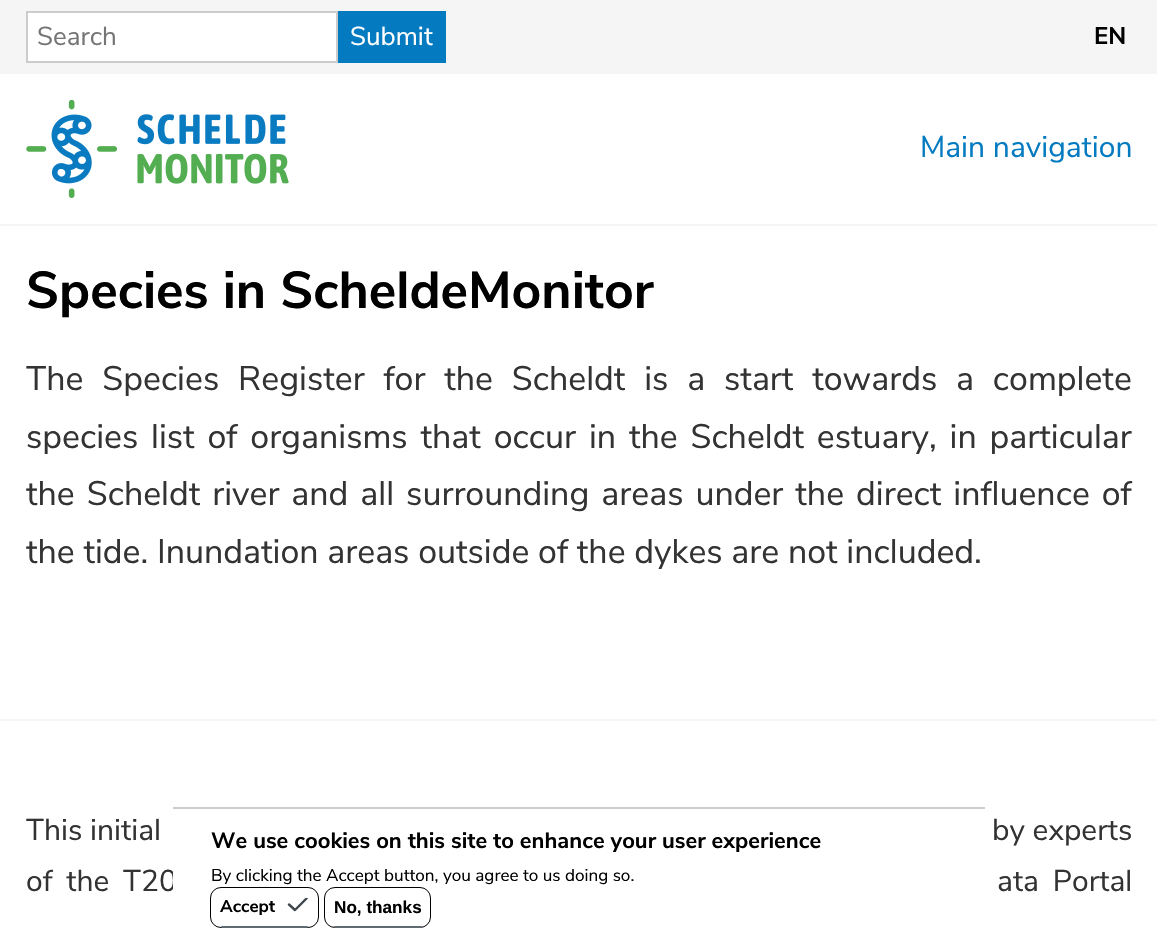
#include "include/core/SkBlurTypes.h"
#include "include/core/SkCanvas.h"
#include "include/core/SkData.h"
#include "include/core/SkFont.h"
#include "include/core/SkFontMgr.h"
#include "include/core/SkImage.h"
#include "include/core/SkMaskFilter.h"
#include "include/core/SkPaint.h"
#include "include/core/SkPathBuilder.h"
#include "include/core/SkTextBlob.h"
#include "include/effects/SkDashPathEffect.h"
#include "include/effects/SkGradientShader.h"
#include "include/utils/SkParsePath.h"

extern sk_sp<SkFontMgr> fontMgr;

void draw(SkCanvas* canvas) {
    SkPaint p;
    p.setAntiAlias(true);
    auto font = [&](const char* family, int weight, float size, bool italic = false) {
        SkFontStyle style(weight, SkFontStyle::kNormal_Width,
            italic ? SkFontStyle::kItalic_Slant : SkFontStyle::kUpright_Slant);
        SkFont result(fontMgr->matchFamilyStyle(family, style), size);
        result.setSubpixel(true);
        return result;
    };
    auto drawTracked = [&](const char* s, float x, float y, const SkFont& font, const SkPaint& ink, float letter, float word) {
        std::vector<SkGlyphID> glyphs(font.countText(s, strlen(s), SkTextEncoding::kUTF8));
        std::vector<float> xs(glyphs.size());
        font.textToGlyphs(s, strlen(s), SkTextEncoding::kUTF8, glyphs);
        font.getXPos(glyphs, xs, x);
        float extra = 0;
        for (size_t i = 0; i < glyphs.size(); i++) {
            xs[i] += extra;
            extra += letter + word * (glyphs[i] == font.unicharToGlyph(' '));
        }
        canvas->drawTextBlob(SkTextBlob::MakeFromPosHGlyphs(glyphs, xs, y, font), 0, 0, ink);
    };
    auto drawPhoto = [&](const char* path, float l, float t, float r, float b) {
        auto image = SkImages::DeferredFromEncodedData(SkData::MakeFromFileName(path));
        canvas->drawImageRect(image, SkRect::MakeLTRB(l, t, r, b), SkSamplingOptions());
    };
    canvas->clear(0xFFFFFFFF);
    p.setColor(0xFFF5F5F5);
    canvas->drawRect(SkRect::MakeLTRB(0, 0, 1157, 74), p);
    p.setColor(0xFFFFFFFF);
    canvas->drawRect(SkRect::MakeLTRB(27, 12, 337, 62), p);
    p.setStyle(SkPaint::kStroke_Style);
    p.setStrokeWidth(2);
    p.setColor(0xFFCCCCCC);
    canvas->drawRect(SkRect::MakeLTRB(27, 12, 337, 62), p);
    auto font1 = font("Nunito Sans", 400, 26);
    p.setStyle(SkPaint::kFill_Style);
    p.setColor(0xFF757575);
    canvas->drawString("Search", 37, 45, font1, p);
    p.setColor(0xFF047BC1);
    canvas->drawRect(SkRect::MakeLTRB(338, 11, 446, 63), p);
    p.setColor(0xFFFFFFFF);
    canvas->drawString("Submit", 350, 45, font1, p);
    auto font2 = font("Nunito Sans", 700, 24);
    p.setColor(0xFF000000);
    canvas->drawString("EN", 1094, 44, font2, p);
    p.setColor(0xFFF5F5F5);
    canvas->drawRect(SkRect::MakeLTRB(0, 224, 1157, 226), p);
    drawPhoto("media/1.png", 26, 100, 289, 198);
    auto font3 = font("Nunito Sans", 400, 30);
    p.setColor(0xFF047BC1);
    canvas->drawString("Main navigation", 920, 157, font3, p);
    auto font4 = font("Nunito Sans", 700, 51.8f);
    p.setColor(0xFF000000);
    canvas->drawString("Species in ScheldeMonitor", 26, 308, font4, p);
    auto font5 = font("Nunito Sans", 400, 33.95f);
    p.setColor(0xFF333333);
    drawTracked("The Species Register for the Scheldt is a start towards a complete", 26, 390, font5, p, 0, 10.1f);
    drawTracked("species list of organisms that occur in the Scheldt estuary, in particular", 26, 448, font5, p, 0, 4.1f);
    drawTracked("the Scheldt river and all surrounding areas under the direct influence of", 26, 505, font5, p, 0, 3.25f);
    canvas->drawString("the tide. Inundation areas outside of the dykes are not included.", 26, 563, font5, p);
    p.setColor(0xFFF5F5F5);
    canvas->drawRect(SkRect::MakeLTRB(0, 719, 1157, 721), p);
    p.setColor(0xFF333333);
    canvas->drawString("This initial", 26, 840, font3, p);
    canvas->drawString("by experts", 992, 840, font3, p);
    drawTracked("of the T20", 26, 891, font3, p, 0, 6);
    drawTracked("ata Portal", 997, 891, font3, p, 0, 6);
    p.setColor(0xFFFFFFFF);
    canvas->drawRect(SkRect::MakeLTRB(173, 871, 177, 890), p);
    p.setColor(0xFFCCCCCC);
    canvas->drawRect(SkRect::MakeLTRB(173, 807, 985, 809), p);
    auto font6 = font("Nunito Sans", 700, 22.05f);
    p.setColor(0xFF000000);
    canvas->drawString("We use cookies on this site to enhance your user experience", 211, 848, font6, p);
    auto font7 = font("Nunito Sans", 400, 17.15f);
    canvas->drawString("By clicking the Accept button, you agree to us doing so.", 211, 881, font7, p);
    p.setStyle(SkPaint::kStroke_Style);
    p.setStrokeWidth(1);
    canvas->drawRoundRect(SkRect::MakeLTRB(210.5f, 887.5f, 318.5f, 927.5f), 10.5f, 10.5f, p);
    auto font8 = font("Nunito Sans", 700, 17.15f);
    p.setStyle(SkPaint::kFill_Style);
    canvas->drawString("Accept", 220, 912, font8, p);
    canvas->save();
    canvas->clipRect(SkRect::MakeLTRB(287, 898, 308, 912));
    p.setStyle(SkPaint::kStroke_Style);
    p.setStrokeWidth(2.4f);
    p.setStrokeCap(SkPaint::kRound_Cap);
    p.setStrokeJoin(SkPaint::kRound_Join);
    p.setColor(0xFF3F474C);
    canvas->drawPath(SkPathBuilder().moveTo(289, 904.5f).lineTo(295, 910).lineTo(306.5f, 898.5f).detach(), p);
    canvas->restore();
    p.setStyle(SkPaint::kFill_Style);
    p.setColor(0xFF5F6A71);
    canvas->drawRoundRect(SkRect::MakeLTRB(221, 926, 308, 928), 1, 1, p);
    p.setStyle(SkPaint::kStroke_Style);
    p.setStrokeWidth(1);
    p.setStrokeCap(SkPaint::kButt_Cap);
    p.setStrokeJoin(SkPaint::kMiter_Join);
    p.setColor(0xFF000000);
    canvas->drawRoundRect(SkRect::MakeLTRB(324.5f, 887.5f, 430.5f, 927.5f), 10.5f, 10.5f, p);
    auto font9 = font("Liberation Sans", 700, 17.15f);
    p.setStyle(SkPaint::kFill_Style);
    canvas->drawString("No, thanks", 334, 913, font9, p);
    p.setColor(0xFF5F6A71);
    canvas->drawRoundRect(SkRect::MakeLTRB(334, 926, 422, 928), 1, 1, p);
}
